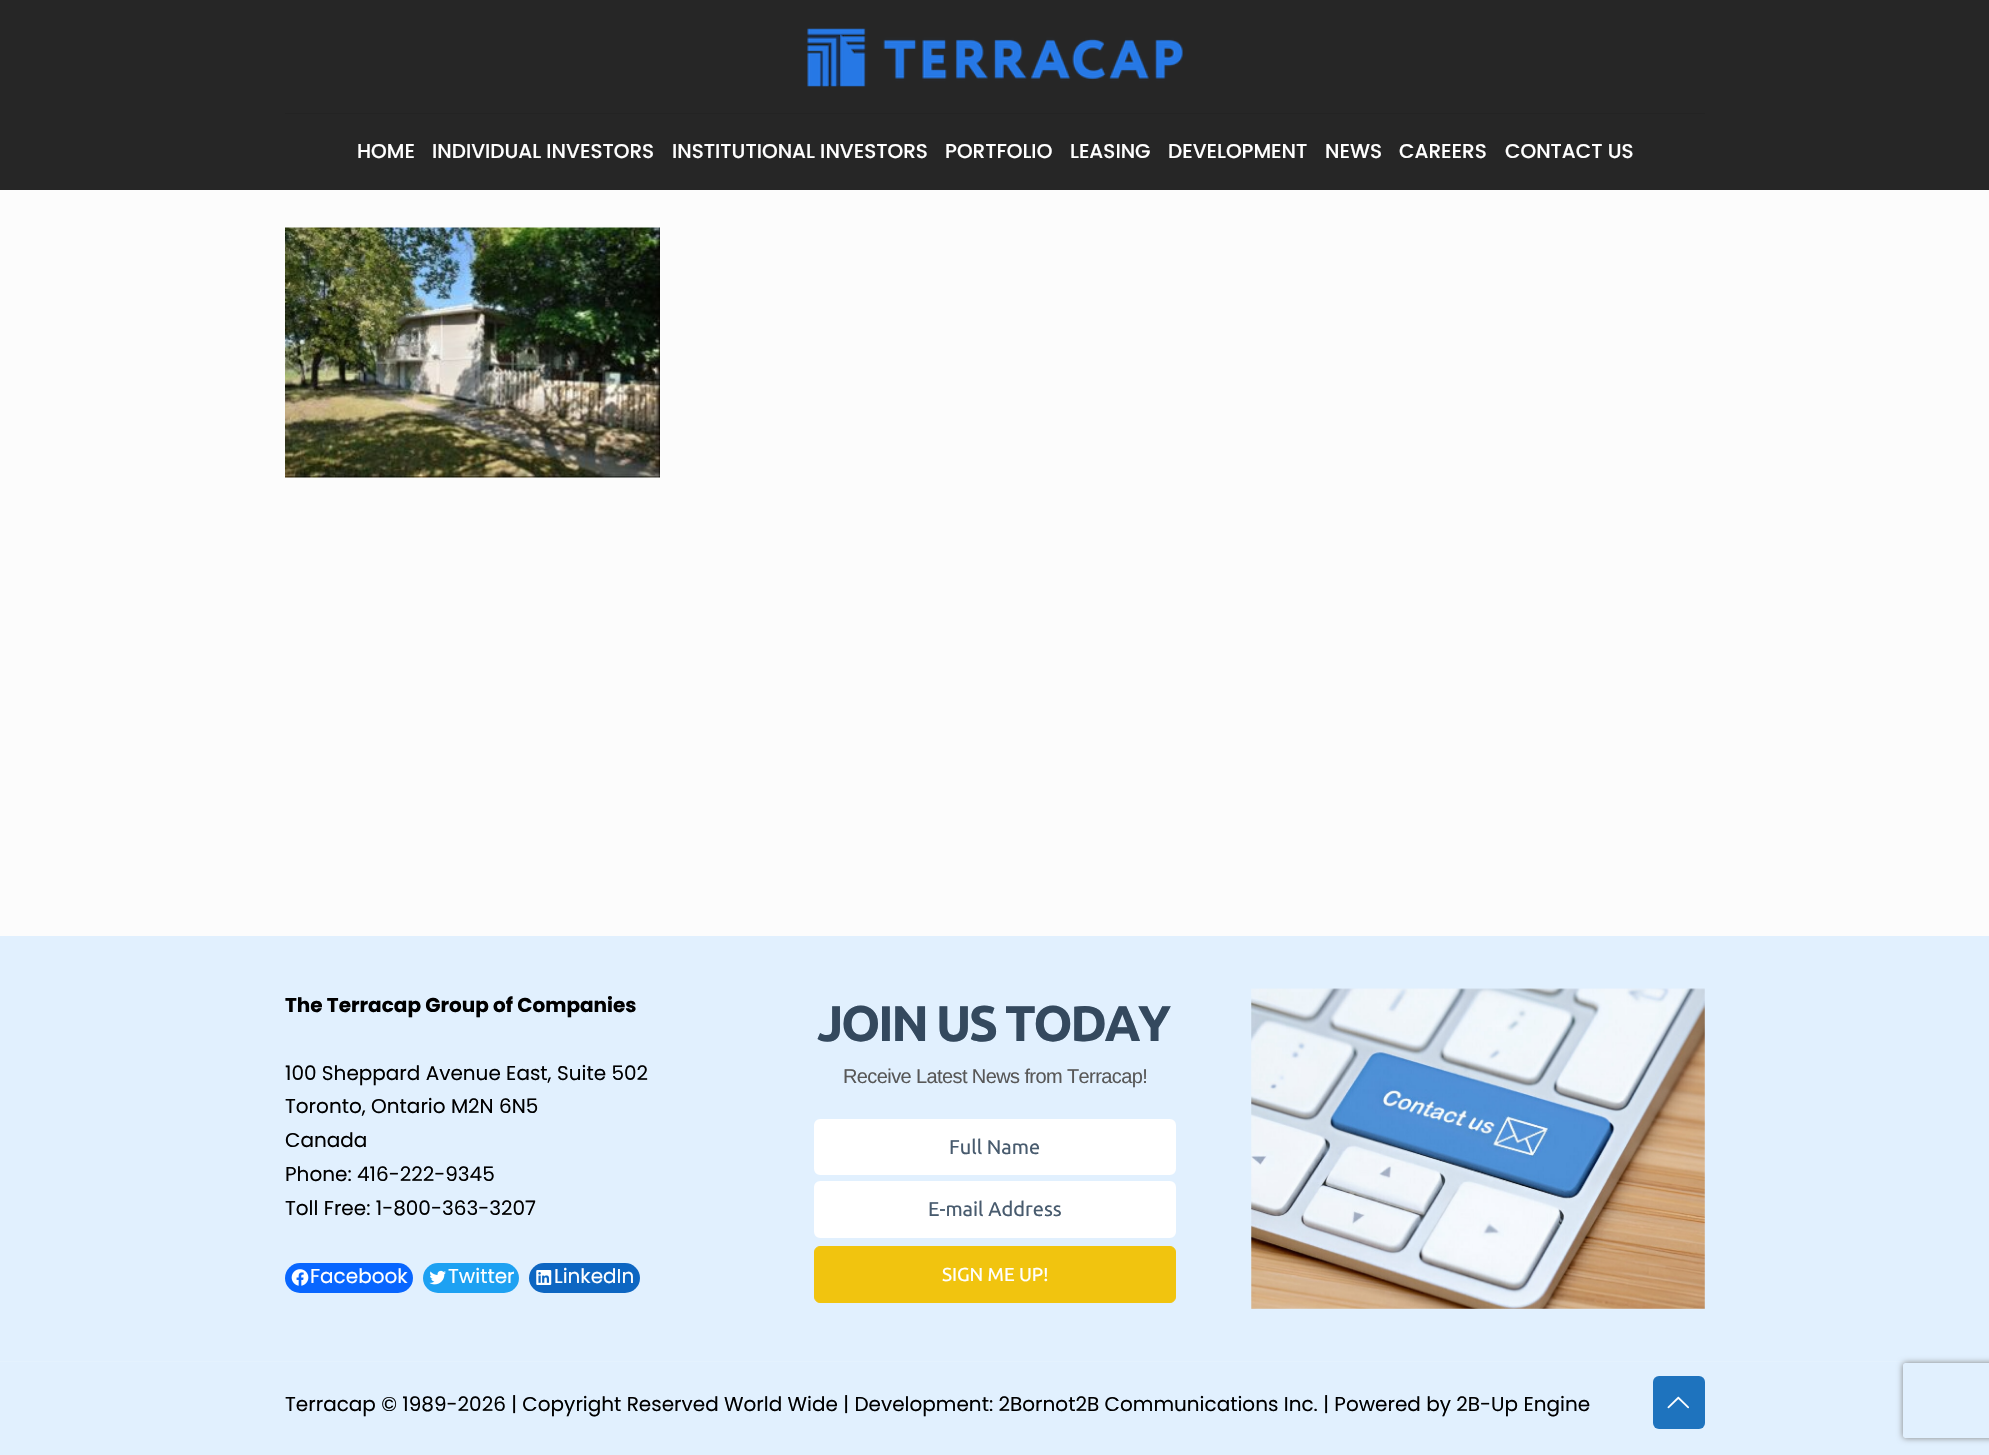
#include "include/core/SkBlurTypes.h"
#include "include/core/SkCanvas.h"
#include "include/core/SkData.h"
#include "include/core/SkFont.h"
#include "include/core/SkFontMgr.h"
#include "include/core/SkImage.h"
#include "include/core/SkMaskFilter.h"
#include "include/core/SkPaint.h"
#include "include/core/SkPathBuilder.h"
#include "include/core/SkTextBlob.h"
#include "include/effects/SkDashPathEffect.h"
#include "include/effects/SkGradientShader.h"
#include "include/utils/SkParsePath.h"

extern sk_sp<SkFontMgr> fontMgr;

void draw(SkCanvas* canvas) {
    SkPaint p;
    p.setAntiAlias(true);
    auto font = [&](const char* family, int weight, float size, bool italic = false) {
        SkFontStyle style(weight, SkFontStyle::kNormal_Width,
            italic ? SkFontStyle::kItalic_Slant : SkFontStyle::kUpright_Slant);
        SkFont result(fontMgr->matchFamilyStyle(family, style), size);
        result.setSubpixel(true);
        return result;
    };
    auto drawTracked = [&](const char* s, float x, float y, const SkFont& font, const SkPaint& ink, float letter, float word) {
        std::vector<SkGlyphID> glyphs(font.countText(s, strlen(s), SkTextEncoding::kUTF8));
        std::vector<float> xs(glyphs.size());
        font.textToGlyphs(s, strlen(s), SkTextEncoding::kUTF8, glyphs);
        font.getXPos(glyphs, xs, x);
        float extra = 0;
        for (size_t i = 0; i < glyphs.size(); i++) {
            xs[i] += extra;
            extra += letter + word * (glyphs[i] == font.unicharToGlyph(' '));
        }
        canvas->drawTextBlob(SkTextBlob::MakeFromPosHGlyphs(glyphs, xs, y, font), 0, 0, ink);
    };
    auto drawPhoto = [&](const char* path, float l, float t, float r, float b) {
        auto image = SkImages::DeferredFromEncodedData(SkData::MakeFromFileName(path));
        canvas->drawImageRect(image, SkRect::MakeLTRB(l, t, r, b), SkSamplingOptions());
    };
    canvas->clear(0xFFFCFCFC);
    p.setColor(0xFF262626);
    canvas->drawRect(SkRect::MakeLTRB(0, 0, 1989, 190), p);
    p.setColor(0xFF232323);
    canvas->drawRect(SkRect::MakeLTRB(285, 113, 1705, 114), p);
    drawPhoto("media/1.png", 807, 28, 1183, 87);
    auto font1 = font("Poppins", 500, 20);
    p.setColor(0xFFFFFFFF);
    {
        const struct { const char* s; float x, y; } items[] = {
            {"HOME", 357, 158},
            {"INDIVIDUAL INVESTORS", 432, 158},
            {"INSTITUTIONAL INVESTORS", 672, 158},
            {"PORTFOLIO", 945, 158},
            {"LEASING", 1070, 158},
            {"DEVELOPMENT", 1168, 158},
            {"NEWS", 1325, 158},
            {"CAREERS", 1399, 158},
            {"CONTACT US", 1505, 158},
        };
        for (auto [s, x, y] : items) {
            canvas->drawString(s, x, y, font1, p);
        }
    }
    drawPhoto("media/2.png", 285, 227, 660, 478);
    p.setColor(0xFFE1F0FE);
    canvas->drawRect(SkRect::MakeLTRB(0, 936, 1989, 1455), p);
    auto font2 = font("Poppins", 700, 20);
    p.setColor(0xFF000000);
    canvas->drawString("The Terracap Group of Companies", 285, 1012, font2, p);
    auto font3 = font("Poppins", 400, 20);
    {
        const struct { const char* s; float x, y; } items[] = {
            {"100 Sheppard Avenue East, Suite 502", 285, 1080},
            {"Toronto, Ontario M2N 6N5", 285, 1113},
            {"Canada", 285, 1147},
            {"Phone: 416-222-9345", 285, 1181},
            {"Toll Free: 1-800-363-3207", 285, 1215},
        };
        for (auto [s, x, y] : items) {
            canvas->drawString(s, x, y, font3, p);
        }
    }
    p.setColor(0xFF0866FF);
    canvas->drawRoundRect(SkRect::MakeLTRB(285, 1263, 413, 1293), 15, 15, p);
    drawPhoto("media/3.png", 291, 1269, 309, 1286);
    p.setColor(0xFFFFFFFF);
    canvas->drawString("Facebook", 310, 1283, font3, p);
    p.setColor(0xFF1DA1F2);
    canvas->drawRoundRect(SkRect::MakeLTRB(423, 1263, 519, 1293), 15, 15, p);
    drawPhoto("media/4.png", 429, 1270, 446, 1285);
    p.setColor(0xFFFFFFFF);
    canvas->drawString("Twitter", 448, 1283, font3, p);
    p.setColor(0xFF0D66C2);
    canvas->drawRoundRect(SkRect::MakeLTRB(529, 1263, 640, 1293), 15, 15, p);
    drawPhoto("media/5.png", 536, 1270, 552, 1285);
    p.setColor(0xFFFFFFFF);
    canvas->drawString("LinkedIn", 554, 1283, font3, p);
    auto font4 = font("Ubuntu", 700, 50);
    p.setColor(0xFF34495E);
    drawTracked("JOIN US TODAY", 817, 1041, font4, p, -2.5f, 0);
    auto font5 = font("Liberation Sans", 400, 20);
    p.setColor(0xFF585858);
    drawTracked("Receive Latest News from Terracap!", 843, 1083, font5, p, -0.6f, 0);
    p.setColor(0xFFFFFFFF);
    canvas->drawRoundRect(SkRect::MakeLTRB(816, 1121, 1174, 1173), 4, 4, p);
    p.setStyle(SkPaint::kStroke_Style);
    p.setStrokeWidth(4);
    canvas->drawRoundRect(SkRect::MakeLTRB(816, 1121, 1174, 1173), 4, 4, p);
    auto font6 = font("Ubuntu", 400, 20);
    p.setStyle(SkPaint::kFill_Style);
    p.setColor(0xFF485B6E);
    canvas->drawString("Full Name", 949, 1154, font6, p);
    p.setColor(0xFFFFFFFF);
    canvas->drawRoundRect(SkRect::MakeLTRB(816, 1183, 1174, 1236), 4, 4, p);
    p.setStyle(SkPaint::kStroke_Style);
    canvas->drawRoundRect(SkRect::MakeLTRB(816, 1183, 1174, 1236), 4, 4, p);
    p.setStyle(SkPaint::kFill_Style);
    p.setColor(0xFF485B6E);
    canvas->drawString("E-mail Address", 928, 1216, font6, p);
    p.setColor(0xFFF1C40F);
    canvas->drawRoundRect(SkRect::MakeLTRB(814.5f, 1246.5f, 1175.5f, 1302.5f), 5.5f, 5.5f, p);
    p.setStyle(SkPaint::kStroke_Style);
    p.setStrokeWidth(1);
    canvas->drawRoundRect(SkRect::MakeLTRB(814.5f, 1246.5f, 1175.5f, 1302.5f), 5.5f, 5.5f, p);
    auto font7 = font("Ubuntu", 400, 18.75f);
    p.setStyle(SkPaint::kFill_Style);
    p.setColor(0xFFFFFFFF);
    canvas->drawString("SIGN ME UP!", 942, 1281, font7, p);
    drawPhoto("media/6.png", 1251, 988, 1705, 1309);
    p.setColor(0xFFE4F2FE);
    canvas->drawRect(SkRect::MakeLTRB(0, 1361, 1989, 1362), p);
    p.setColor(0xFF000000);
    canvas->drawString("Terracap © 1989-2026 | Copyright Reserved World Wide | Development: 2Bornot2B Communications Inc. | Powered by 2B-Up Engine", 285, 1411, font3, p);
    p.setColor(0xFF1E73BE);
    canvas->drawRoundRect(SkRect::MakeLTRB(1653, 1376, 1705, 1429), 6, 6, p);
    drawPhoto("media/7.png", 1667, 1396, 1689, 1409);
    canvas->save();
    canvas->clipPath(SkPathBuilder(SkPathFillType::kEvenOdd).moveTo(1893, 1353).lineTo(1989, 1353).lineTo(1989, 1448).lineTo(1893, 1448).close().moveTo(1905.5f, 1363).lineTo(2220.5f, 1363).cubicTo(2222, 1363, 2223, 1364, 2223, 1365.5f).lineTo(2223, 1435.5f).cubicTo(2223, 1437, 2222, 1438, 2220.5f, 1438).lineTo(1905.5f, 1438).cubicTo(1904, 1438, 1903, 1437, 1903, 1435.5f).lineTo(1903, 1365.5f).cubicTo(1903, 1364, 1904, 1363, 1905.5f, 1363).close().detach(), true);
    p.setColor(0xFF808080);
    p.setMaskFilter(SkMaskFilter::MakeBlur(kNormal_SkBlurStyle, 3));
    canvas->drawRoundRect(SkRect::MakeLTRB(1903, 1363, 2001, 1438), 2.5f, 2.5f, p);
    p.setMaskFilter(nullptr);
    canvas->restore();
}
